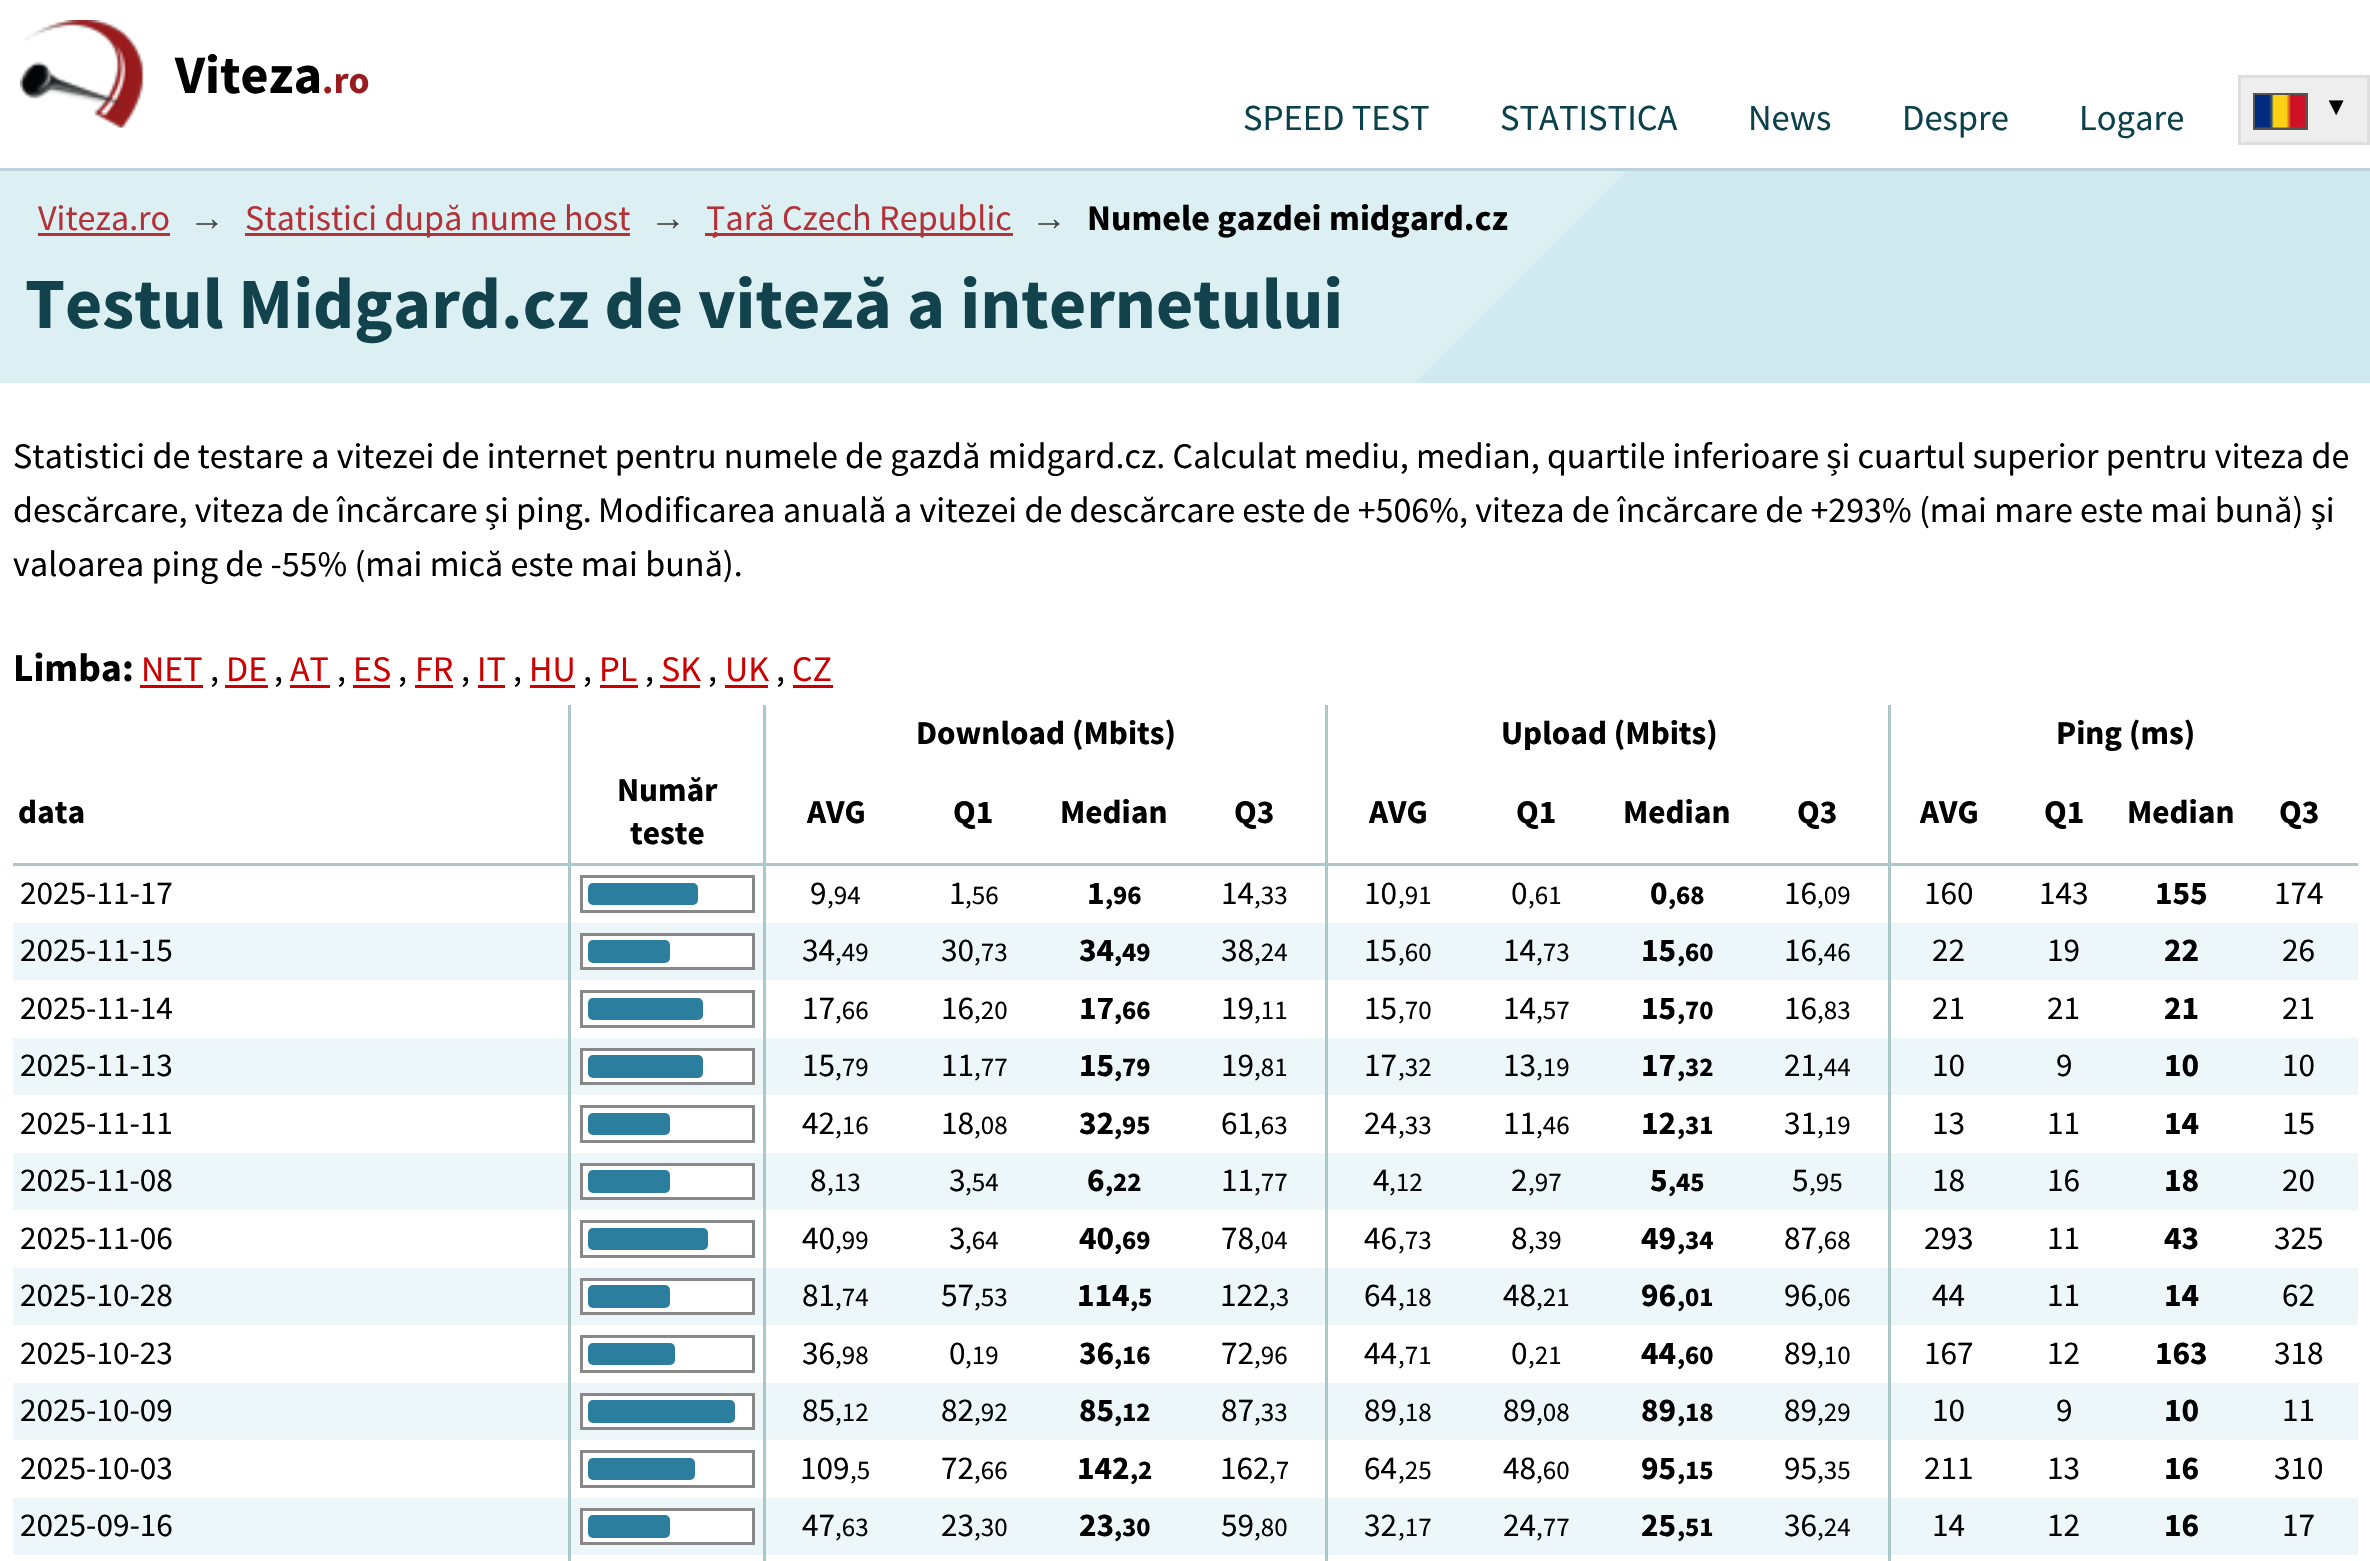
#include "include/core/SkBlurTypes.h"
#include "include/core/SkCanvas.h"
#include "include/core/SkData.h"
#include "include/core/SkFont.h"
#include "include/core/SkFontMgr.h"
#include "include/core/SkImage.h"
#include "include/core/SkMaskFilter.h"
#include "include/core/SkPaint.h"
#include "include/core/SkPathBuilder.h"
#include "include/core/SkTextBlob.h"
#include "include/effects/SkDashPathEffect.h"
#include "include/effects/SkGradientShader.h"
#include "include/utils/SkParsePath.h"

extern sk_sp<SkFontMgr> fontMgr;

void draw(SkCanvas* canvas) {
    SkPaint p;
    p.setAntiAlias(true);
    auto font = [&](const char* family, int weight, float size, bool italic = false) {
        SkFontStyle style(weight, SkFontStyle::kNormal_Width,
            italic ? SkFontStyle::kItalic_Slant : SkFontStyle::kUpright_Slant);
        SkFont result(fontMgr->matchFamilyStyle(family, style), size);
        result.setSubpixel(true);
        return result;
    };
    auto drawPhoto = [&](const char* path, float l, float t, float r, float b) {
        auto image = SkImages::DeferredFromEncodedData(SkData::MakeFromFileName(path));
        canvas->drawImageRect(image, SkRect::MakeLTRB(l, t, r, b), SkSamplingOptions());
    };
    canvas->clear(0xFFFFFFFF);
    drawPhoto("media/1.png", 20, 20, 144, 128);
    auto font1 = font("Source Sans Pro", 700, 54);
    p.setColor(0xFF000000);
    canvas->drawString("Viteza", 175, 93, font1, p);
    auto font2 = font("Source Sans Pro", 700, 38);
    p.setColor(0xFF981B1E);
    canvas->drawString(".ro", 322, 93, font2, p);
    auto font3 = font("Source Sans Pro", 400, 36.5f);
    p.setColor(0xFF0B414B);
    {
        const struct { const char* s; float x, y; } items[] = {
            {"SPEED TEST", 1243, 130},
            {"STATISTICA", 1500, 130},
            {"News", 1748, 130},
            {"Despre", 1902, 130},
            {"Logare", 2079, 130},
        };
        for (auto [s, x, y] : items) {
            canvas->drawString(s, x, y, font3, p);
        }
    }
    p.setColor(0xFFEEEEEE);
    canvas->drawRect(SkRect::MakeLTRB(2239.5f, 76.5f, 2368.5f, 143.5f), p);
    p.setStyle(SkPaint::kStroke_Style);
    p.setStrokeWidth(3);
    p.setColor(0xFFDDDDDD);
    canvas->drawRect(SkRect::MakeLTRB(2239.5f, 76.5f, 2368.5f, 143.5f), p);
    p.setColor(0xFF555555);
    canvas->drawRect(SkRect::MakeLTRB(2254.5f, 94.5f, 2306.5f, 128.5f), p);
    drawPhoto("media/2.png", 2255, 95, 2305, 128);
    auto font4 = font("DejaVu Sans", 700, 27);
    p.setStyle(SkPaint::kFill_Style);
    p.setColor(0xFF000000);
    canvas->drawString("▾", 2329, 115, font4, p);
    {
        const SkColor colors[] = {0xFFDCEFF3, 0xFFDCEFF3, 0xFFD1EAF1, 0xFFD1EAF1};
        const float stops[] = {0, 0.63f, 0.63f, 1};
        const SkPoint ends[] = {{539, -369}, {1831, 922}};
        p.setShader(SkGradientShader::MakeLinear(ends, colors, stops, 4, SkTileMode::kClamp));
        p.setAlpha(255);
    }
    canvas->drawRect(SkRect::MakeLTRB(0, 171, 2370, 383), p);
    p.setShader(nullptr);
    p.setColor(0xFFBAD2DA);
    canvas->drawRect(SkRect::MakeLTRB(0, 168, 2370, 171), p);
    auto font5 = font("Source Sans Pro", 400, 36);
    p.setColor(0xFFB33238);
    canvas->drawString("Viteza.ro", 38, 230, font5, p);
    canvas->drawRect(SkRect::MakeLTRB(38, 233, 170, 236), p);
    auto font6 = font("Liberation Sans", 400, 36);
    p.setColor(0xFF444444);
    canvas->drawString("→", 189, 230, font6, p);
    p.setColor(0xFFB33238);
    canvas->drawRect(SkRect::MakeLTRB(245, 233, 630, 236), p);
    canvas->drawString("Statistici după nume host", 245, 230, font5, p);
    p.setColor(0xFF444444);
    canvas->drawString("→", 650, 230, font6, p);
    p.setColor(0xFFB33238);
    canvas->drawRect(SkRect::MakeLTRB(705, 233, 1013, 236), p);
    canvas->drawString("Țară Czech Republic", 706, 230, font5, p);
    p.setColor(0xFF444444);
    canvas->drawString("→", 1031, 230, font6, p);
    auto font7 = font("Source Sans Pro", 700, 36);
    p.setColor(0xFF000000);
    canvas->drawString("Numele gazdei midgard.cz", 1087, 230, font7, p);
    auto font8 = font("Source Sans Pro", 700, 72);
    p.setColor(0xFF12424C);
    canvas->drawString("Testul Midgard.cz de viteză a internetului", 25, 328, font8, p);
    p.setColor(0xFF000000);
    {
        const struct { const char* s; float x, y; } items[] = {
            {"Statistici de testare a vitezei de internet pentru numele de gazdă midgard.cz. Calculat mediu, median, quartile inferioare și cuartul superior pentru viteza de", 13, 468},
            {"descărcare, viteza de încărcare și ping.", 13, 522},
            {"Modificarea anuală a vitezei de descărcare este de +506%, viteza de încărcare de +293% (mai mare este mai bună) și", 598, 522},
            {"valoarea ping de -55% (mai mică este mai bună).", 13, 576},
        };
        for (auto [s, x, y] : items) {
            canvas->drawString(s, x, y, font5, p);
        }
    }
    auto font9 = font("Source Sans Pro", 700, 39.5f);
    canvas->drawString("Limba:", 13, 681, font9, p);
    p.setColor(0xFFCC0000);
    canvas->drawString("NET", 141, 681, font5, p);
    canvas->drawRect(SkRect::MakeLTRB(140, 685, 203, 688), p);
    p.setColor(0xFF000000);
    canvas->drawString(",", 210, 681, font5, p);
    p.setColor(0xFFCC0000);
    canvas->drawString("DE", 226, 681, font5, p);
    canvas->drawRect(SkRect::MakeLTRB(225, 685, 268, 688), p);
    p.setColor(0xFF000000);
    canvas->drawString(",", 274, 681, font5, p);
    p.setColor(0xFFCC0000);
    canvas->drawString("AT", 290, 681, font5, p);
    canvas->drawRect(SkRect::MakeLTRB(290, 685, 330, 688), p);
    p.setColor(0xFF000000);
    canvas->drawString(",", 337, 681, font5, p);
    p.setColor(0xFFCC0000);
    canvas->drawString("ES", 353, 681, font5, p);
    canvas->drawRect(SkRect::MakeLTRB(353, 685, 390, 688), p);
    p.setColor(0xFF000000);
    canvas->drawString(",", 398, 681, font5, p);
    p.setColor(0xFFCC0000);
    canvas->drawString("FR", 415, 681, font5, p);
    canvas->drawRect(SkRect::MakeLTRB(415, 685, 453, 688), p);
    p.setColor(0xFF000000);
    canvas->drawString(",", 461, 681, font5, p);
    p.setColor(0xFFCC0000);
    canvas->drawString("IT", 477, 681, font5, p);
    canvas->drawRect(SkRect::MakeLTRB(478, 685, 505, 688), p);
    p.setColor(0xFF000000);
    canvas->drawString(",", 513, 681, font5, p);
    p.setColor(0xFFCC0000);
    canvas->drawString("HU", 529, 681, font5, p);
    canvas->drawRect(SkRect::MakeLTRB(530, 685, 575, 688), p);
    p.setColor(0xFF000000);
    canvas->drawString(",", 583, 681, font5, p);
    p.setColor(0xFFCC0000);
    canvas->drawString("PL", 599, 681, font5, p);
    canvas->drawRect(SkRect::MakeLTRB(600, 685, 638, 688), p);
    p.setColor(0xFF000000);
    canvas->drawString(",", 645, 681, font5, p);
    p.setColor(0xFFCC0000);
    canvas->drawString("SK", 661, 681, font5, p);
    canvas->drawRect(SkRect::MakeLTRB(660, 685, 700, 688), p);
    p.setColor(0xFF000000);
    canvas->drawString(",", 708, 681, font5, p);
    p.setColor(0xFFCC0000);
    canvas->drawString("UK", 725, 681, font5, p);
    canvas->drawRect(SkRect::MakeLTRB(725, 685, 768, 688), p);
    p.setColor(0xFF000000);
    canvas->drawString(",", 776, 681, font5, p);
    p.setColor(0xFFCC0000);
    canvas->drawString("CZ", 792, 681, font5, p);
    canvas->drawRect(SkRect::MakeLTRB(793, 685, 833, 688), p);
    auto font10 = font("Source Sans Pro", 700, 33.25f);
    p.setColor(0xFF000000);
    {
        const struct { const char* s; float x, y; } items[] = {
            {"Download (Mbits)", 916, 744},
            {"Upload (Mbits)", 1501, 744},
            {"Ping (ms)", 2056, 744},
        };
        for (auto [s, x, y] : items) {
            canvas->drawString(s, x, y, font10, p);
        }
    }
    {
        const struct { float l, t, r, b; SkColor color; } items[] = {
            {1888, 863, 1891, 1561, 0xFFAAC8C8},
            {1888, 863, 2358, 866, 0xFFAAC8C8},
            {1888, 705, 1891, 865, 0xFFAAC8C8},
            {1325, 863, 1328, 1561, 0xFFAAC8C8},
            {1325, 863, 1890, 866, 0xFFAAC8C8},
            {1325, 705, 1328, 865, 0xFFAAC8C8},
            {763, 863, 766, 1561, 0xFFAAC8C8},
            {763, 863, 1328, 866, 0xFFAAC8C8},
            {763, 705, 766, 865, 0xFFAAC8C8},
            {568, 863, 571, 1561, 0xFFAAC8C8},
            {568, 863, 765, 866, 0xFFAAC8C8},
            {568, 705, 571, 865, 0xFFAAC8C8},
            {13, 863, 570, 866, 0xFFAAC8C8},
        };
        for (auto [l, t, r, b, color] : items) {
            p.setColor(color);
            canvas->drawRect(SkRect::MakeLTRB(l, t, r, b), p);
        }
    }
    p.setColor(0xFF000000);
    {
        const struct { const char* s; float x, y; } items[] = {
            {"data", 18, 823},
            {"Număr", 617, 801},
            {"teste", 630, 844},
            {"AVG", 807, 823},
            {"Q1", 953, 823},
            {"Median", 1060, 823},
            {"Q3", 1234, 823},
            {"AVG", 1369, 823},
            {"Q1", 1516, 823},
            {"Median", 1623, 823},
            {"Q3", 1797, 823},
            {"AVG", 1920, 823},
            {"Q1", 2044, 823},
            {"Median", 2127, 823},
            {"Q3", 2279, 823},
        };
        for (auto [s, x, y] : items) {
            canvas->drawString(s, x, y, font10, p);
        }
    }
    auto font11 = font("Source Sans Pro", 400, 33.25f);
    canvas->drawString("2025-11-17", 20, 904, font11, p);
    p.setStyle(SkPaint::kStroke_Style);
    p.setColor(0xFF888888);
    canvas->drawRect(SkRect::MakeLTRB(581.5f, 876.5f, 753.5f, 911.5f), p);
    p.setStyle(SkPaint::kFill_Style);
    p.setColor(0xFF2C7E9F);
    canvas->drawRoundRect(SkRect::MakeLTRB(588, 883, 698, 905), 5, 5, p);
    p.setColor(0xFF000000);
    canvas->drawString("9", 810, 904, font11, p);
    auto font12 = font("Source Sans Pro", 400, 27);
    canvas->drawString(",94", 827, 904, font12, p);
    canvas->drawString("1", 949, 904, font11, p);
    canvas->drawString(",56", 965, 904, font12, p);
    canvas->drawString("1", 1087, 904, font10, p);
    auto font13 = font("Source Sans Pro", 700, 27);
    canvas->drawString(",96", 1105, 904, font13, p);
    canvas->drawString("14", 1221, 904, font11, p);
    canvas->drawString(",33", 1254, 904, font12, p);
    canvas->drawString("10", 1364, 904, font11, p);
    canvas->drawString(",91", 1398, 904, font12, p);
    canvas->drawString("0", 1511, 904, font11, p);
    canvas->drawString(",61", 1528, 904, font12, p);
    canvas->drawString("0", 1650, 904, font10, p);
    canvas->drawString(",68", 1668, 904, font13, p);
    canvas->drawString("16", 1784, 904, font11, p);
    canvas->drawString(",09", 1817, 904, font12, p);
    canvas->drawString("160", 1924, 904, font11, p);
    canvas->drawString("143", 2039, 904, font11, p);
    canvas->drawString("155", 2155, 904, font10, p);
    canvas->drawString("174", 2274, 904, font11, p);
    p.setColor(0xFFEDF7F9);
    canvas->drawRect(SkRect::MakeLTRB(13, 923, 568, 980), p);
    p.setColor(0xFF000000);
    canvas->drawString("2025-11-15", 20, 961, font11, p);
    p.setColor(0xFFEDF7F9);
    canvas->drawRect(SkRect::MakeLTRB(571, 923, 763, 980), p);
    p.setColor(0xFFFFFFFF);
    canvas->drawRect(SkRect::MakeLTRB(581.5f, 934.5f, 753.5f, 968.5f), p);
    p.setStyle(SkPaint::kStroke_Style);
    p.setColor(0xFF888888);
    canvas->drawRect(SkRect::MakeLTRB(581.5f, 934.5f, 753.5f, 968.5f), p);
    p.setStyle(SkPaint::kFill_Style);
    p.setColor(0xFF2C7E9F);
    canvas->drawRoundRect(SkRect::MakeLTRB(588, 940, 670, 963), 5, 5, p);
    p.setColor(0xFFEDF7F9);
    canvas->drawRect(SkRect::MakeLTRB(766, 923, 1325, 980), p);
    p.setColor(0xFF000000);
    canvas->drawString("34", 802, 961, font11, p);
    canvas->drawString(",49", 835, 961, font12, p);
    canvas->drawString("30", 941, 961, font11, p);
    canvas->drawString(",73", 974, 961, font12, p);
    canvas->drawString("34", 1079, 961, font10, p);
    canvas->drawString(",49", 1114, 961, font13, p);
    canvas->drawString("38", 1221, 961, font11, p);
    canvas->drawString(",24", 1254, 961, font12, p);
    p.setColor(0xFFEDF7F9);
    canvas->drawRect(SkRect::MakeLTRB(1328, 923, 1888, 980), p);
    p.setColor(0xFF000000);
    canvas->drawString("15", 1364, 961, font11, p);
    canvas->drawString(",60", 1398, 961, font12, p);
    canvas->drawString("14", 1503, 961, font11, p);
    canvas->drawString(",73", 1536, 961, font12, p);
    canvas->drawString("15", 1641, 961, font10, p);
    canvas->drawString(",60", 1677, 961, font13, p);
    canvas->drawString("16", 1784, 961, font11, p);
    canvas->drawString(",46", 1817, 961, font12, p);
    p.setColor(0xFFEDF7F9);
    canvas->drawRect(SkRect::MakeLTRB(1891, 923, 2358, 980), p);
    p.setColor(0xFF000000);
    canvas->drawString("22", 1932, 961, font11, p);
    canvas->drawString("19", 2047, 961, font11, p);
    canvas->drawString("22", 2164, 961, font10, p);
    canvas->drawString("26", 2282, 961, font11, p);
    canvas->drawString("2025-11-14", 20, 1019, font11, p);
    p.setStyle(SkPaint::kStroke_Style);
    p.setColor(0xFF888888);
    canvas->drawRect(SkRect::MakeLTRB(581.5f, 991.5f, 753.5f, 1026.5f), p);
    p.setStyle(SkPaint::kFill_Style);
    p.setColor(0xFF2C7E9F);
    canvas->drawRoundRect(SkRect::MakeLTRB(588, 998, 703, 1020), 5, 5, p);
    p.setColor(0xFF000000);
    canvas->drawString("17", 802, 1019, font11, p);
    canvas->drawString(",66", 835, 1019, font12, p);
    canvas->drawString("16", 941, 1019, font11, p);
    canvas->drawString(",20", 974, 1019, font12, p);
    canvas->drawString("17", 1079, 1019, font10, p);
    canvas->drawString(",66", 1114, 1019, font13, p);
    canvas->drawString("19", 1221, 1019, font11, p);
    canvas->drawString(",11", 1254, 1019, font12, p);
    canvas->drawString("15", 1364, 1019, font11, p);
    canvas->drawString(",70", 1398, 1019, font12, p);
    canvas->drawString("14", 1503, 1019, font11, p);
    canvas->drawString(",57", 1536, 1019, font12, p);
    canvas->drawString("15", 1641, 1019, font10, p);
    canvas->drawString(",70", 1677, 1019, font13, p);
    canvas->drawString("16", 1784, 1019, font11, p);
    canvas->drawString(",83", 1817, 1019, font12, p);
    canvas->drawString("21", 1932, 1019, font11, p);
    canvas->drawString("21", 2047, 1019, font11, p);
    canvas->drawString("21", 2164, 1019, font10, p);
    canvas->drawString("21", 2282, 1019, font11, p);
    p.setColor(0xFFEDF7F9);
    canvas->drawRect(SkRect::MakeLTRB(13, 1038, 568, 1095), p);
    p.setColor(0xFF000000);
    canvas->drawString("2025-11-13", 20, 1076, font11, p);
    p.setColor(0xFFEDF7F9);
    canvas->drawRect(SkRect::MakeLTRB(571, 1038, 763, 1095), p);
    p.setColor(0xFFFFFFFF);
    canvas->drawRect(SkRect::MakeLTRB(581.5f, 1049.5f, 753.5f, 1083.5f), p);
    p.setStyle(SkPaint::kStroke_Style);
    p.setColor(0xFF888888);
    canvas->drawRect(SkRect::MakeLTRB(581.5f, 1049.5f, 753.5f, 1083.5f), p);
    p.setStyle(SkPaint::kFill_Style);
    p.setColor(0xFF2C7E9F);
    canvas->drawRoundRect(SkRect::MakeLTRB(588, 1055, 703, 1078), 5, 5, p);
    p.setColor(0xFFEDF7F9);
    canvas->drawRect(SkRect::MakeLTRB(766, 1038, 1325, 1095), p);
    p.setColor(0xFF000000);
    canvas->drawString("15", 802, 1076, font11, p);
    canvas->drawString(",79", 835, 1076, font12, p);
    canvas->drawString("11", 941, 1076, font11, p);
    canvas->drawString(",77", 974, 1076, font12, p);
    canvas->drawString("15", 1079, 1076, font10, p);
    canvas->drawString(",79", 1114, 1076, font13, p);
    canvas->drawString("19", 1221, 1076, font11, p);
    canvas->drawString(",81", 1254, 1076, font12, p);
    p.setColor(0xFFEDF7F9);
    canvas->drawRect(SkRect::MakeLTRB(1328, 1038, 1888, 1095), p);
    p.setColor(0xFF000000);
    canvas->drawString("17", 1364, 1076, font11, p);
    canvas->drawString(",32", 1398, 1076, font12, p);
    canvas->drawString("13", 1503, 1076, font11, p);
    canvas->drawString(",19", 1536, 1076, font12, p);
    canvas->drawString("17", 1641, 1076, font10, p);
    canvas->drawString(",32", 1677, 1076, font13, p);
    canvas->drawString("21", 1784, 1076, font11, p);
    canvas->drawString(",44", 1817, 1076, font12, p);
    p.setColor(0xFFEDF7F9);
    canvas->drawRect(SkRect::MakeLTRB(1891, 1038, 2358, 1095), p);
    p.setColor(0xFF000000);
    canvas->drawString("10", 1932, 1076, font11, p);
    canvas->drawString("9", 2056, 1076, font11, p);
    canvas->drawString("10", 2164, 1076, font10, p);
    canvas->drawString("10", 2282, 1076, font11, p);
    canvas->drawString("2025-11-11", 20, 1134, font11, p);
    p.setStyle(SkPaint::kStroke_Style);
    p.setColor(0xFF888888);
    canvas->drawRect(SkRect::MakeLTRB(581.5f, 1106.5f, 753.5f, 1141.5f), p);
    p.setStyle(SkPaint::kFill_Style);
    p.setColor(0xFF2C7E9F);
    canvas->drawRoundRect(SkRect::MakeLTRB(588, 1113, 670, 1135), 5, 5, p);
    p.setColor(0xFF000000);
    canvas->drawString("42", 802, 1134, font11, p);
    canvas->drawString(",16", 835, 1134, font12, p);
    canvas->drawString("18", 941, 1134, font11, p);
    canvas->drawString(",08", 974, 1134, font12, p);
    canvas->drawString("32", 1079, 1134, font10, p);
    canvas->drawString(",95", 1114, 1134, font13, p);
    canvas->drawString("61", 1221, 1134, font11, p);
    canvas->drawString(",63", 1254, 1134, font12, p);
    canvas->drawString("24", 1364, 1134, font11, p);
    canvas->drawString(",33", 1398, 1134, font12, p);
    canvas->drawString("11", 1503, 1134, font11, p);
    canvas->drawString(",46", 1536, 1134, font12, p);
    canvas->drawString("12", 1641, 1134, font10, p);
    canvas->drawString(",31", 1677, 1134, font13, p);
    canvas->drawString("31", 1784, 1134, font11, p);
    canvas->drawString(",19", 1817, 1134, font12, p);
    canvas->drawString("13", 1932, 1134, font11, p);
    canvas->drawString("11", 2047, 1134, font11, p);
    canvas->drawString("14", 2164, 1134, font10, p);
    canvas->drawString("15", 2282, 1134, font11, p);
    p.setColor(0xFFEDF7F9);
    canvas->drawRect(SkRect::MakeLTRB(13, 1153, 568, 1210), p);
    p.setColor(0xFF000000);
    canvas->drawString("2025-11-08", 20, 1191, font11, p);
    p.setColor(0xFFEDF7F9);
    canvas->drawRect(SkRect::MakeLTRB(571, 1153, 763, 1210), p);
    p.setColor(0xFFFFFFFF);
    canvas->drawRect(SkRect::MakeLTRB(581.5f, 1164.5f, 753.5f, 1198.5f), p);
    p.setStyle(SkPaint::kStroke_Style);
    p.setColor(0xFF888888);
    canvas->drawRect(SkRect::MakeLTRB(581.5f, 1164.5f, 753.5f, 1198.5f), p);
    p.setStyle(SkPaint::kFill_Style);
    p.setColor(0xFF2C7E9F);
    canvas->drawRoundRect(SkRect::MakeLTRB(588, 1170, 670, 1193), 5, 5, p);
    p.setColor(0xFFEDF7F9);
    canvas->drawRect(SkRect::MakeLTRB(766, 1153, 1325, 1210), p);
    p.setColor(0xFF000000);
    canvas->drawString("8", 810, 1191, font11, p);
    canvas->drawString(",13", 827, 1191, font12, p);
    canvas->drawString("3", 949, 1191, font11, p);
    canvas->drawString(",54", 965, 1191, font12, p);
    canvas->drawString("6", 1087, 1191, font10, p);
    canvas->drawString(",22", 1105, 1191, font13, p);
    canvas->drawString("11", 1221, 1191, font11, p);
    canvas->drawString(",77", 1254, 1191, font12, p);
    p.setColor(0xFFEDF7F9);
    canvas->drawRect(SkRect::MakeLTRB(1328, 1153, 1888, 1210), p);
    p.setColor(0xFF000000);
    canvas->drawString("4", 1373, 1191, font11, p);
    canvas->drawString(",12", 1389, 1191, font12, p);
    canvas->drawString("2", 1511, 1191, font11, p);
    canvas->drawString(",97", 1528, 1191, font12, p);
    canvas->drawString("5", 1650, 1191, font10, p);
    canvas->drawString(",45", 1668, 1191, font13, p);
    canvas->drawString("5", 1792, 1191, font11, p);
    canvas->drawString(",95", 1809, 1191, font12, p);
    p.setColor(0xFFEDF7F9);
    canvas->drawRect(SkRect::MakeLTRB(1891, 1153, 2358, 1210), p);
    p.setColor(0xFF000000);
    canvas->drawString("18", 1932, 1191, font11, p);
    canvas->drawString("16", 2047, 1191, font11, p);
    canvas->drawString("18", 2164, 1191, font10, p);
    canvas->drawString("20", 2282, 1191, font11, p);
    canvas->drawString("2025-11-06", 20, 1249, font11, p);
    p.setStyle(SkPaint::kStroke_Style);
    p.setColor(0xFF888888);
    canvas->drawRect(SkRect::MakeLTRB(581.5f, 1221.5f, 753.5f, 1256.5f), p);
    p.setStyle(SkPaint::kFill_Style);
    p.setColor(0xFF2C7E9F);
    canvas->drawRoundRect(SkRect::MakeLTRB(588, 1228, 708, 1250), 5, 5, p);
    p.setColor(0xFF000000);
    canvas->drawString("40", 802, 1249, font11, p);
    canvas->drawString(",99", 835, 1249, font12, p);
    canvas->drawString("3", 949, 1249, font11, p);
    canvas->drawString(",64", 965, 1249, font12, p);
    canvas->drawString("40", 1079, 1249, font10, p);
    canvas->drawString(",69", 1114, 1249, font13, p);
    canvas->drawString("78", 1221, 1249, font11, p);
    canvas->drawString(",04", 1254, 1249, font12, p);
    canvas->drawString("46", 1364, 1249, font11, p);
    canvas->drawString(",73", 1398, 1249, font12, p);
    canvas->drawString("8", 1511, 1249, font11, p);
    canvas->drawString(",39", 1528, 1249, font12, p);
    canvas->drawString("49", 1641, 1249, font10, p);
    canvas->drawString(",34", 1677, 1249, font13, p);
    canvas->drawString("87", 1784, 1249, font11, p);
    canvas->drawString(",68", 1817, 1249, font12, p);
    canvas->drawString("293", 1924, 1249, font11, p);
    canvas->drawString("11", 2047, 1249, font11, p);
    canvas->drawString("43", 2164, 1249, font10, p);
    canvas->drawString("325", 2274, 1249, font11, p);
    p.setColor(0xFFEDF7F9);
    canvas->drawRect(SkRect::MakeLTRB(13, 1268, 568, 1325), p);
    p.setColor(0xFF000000);
    canvas->drawString("2025-10-28", 20, 1306, font11, p);
    p.setColor(0xFFEDF7F9);
    canvas->drawRect(SkRect::MakeLTRB(571, 1268, 763, 1325), p);
    p.setColor(0xFFFFFFFF);
    canvas->drawRect(SkRect::MakeLTRB(581.5f, 1279.5f, 753.5f, 1313.5f), p);
    p.setStyle(SkPaint::kStroke_Style);
    p.setColor(0xFF888888);
    canvas->drawRect(SkRect::MakeLTRB(581.5f, 1279.5f, 753.5f, 1313.5f), p);
    p.setStyle(SkPaint::kFill_Style);
    p.setColor(0xFF2C7E9F);
    canvas->drawRoundRect(SkRect::MakeLTRB(588, 1285, 670, 1308), 5, 5, p);
    p.setColor(0xFFEDF7F9);
    canvas->drawRect(SkRect::MakeLTRB(766, 1268, 1325, 1325), p);
    p.setColor(0xFF000000);
    canvas->drawString("81", 802, 1306, font11, p);
    canvas->drawString(",74", 835, 1306, font12, p);
    canvas->drawString("57", 941, 1306, font11, p);
    canvas->drawString(",53", 974, 1306, font12, p);
    canvas->drawString("114", 1077, 1306, font10, p);
    canvas->drawString(",5", 1130, 1306, font13, p);
    canvas->drawString("122", 1220, 1306, font11, p);
    canvas->drawString(",3", 1269, 1306, font12, p);
    p.setColor(0xFFEDF7F9);
    canvas->drawRect(SkRect::MakeLTRB(1328, 1268, 1888, 1325), p);
    p.setColor(0xFF000000);
    canvas->drawString("64", 1364, 1306, font11, p);
    canvas->drawString(",18", 1398, 1306, font12, p);
    canvas->drawString("48", 1503, 1306, font11, p);
    canvas->drawString(",21", 1536, 1306, font12, p);
    canvas->drawString("96", 1641, 1306, font10, p);
    canvas->drawString(",01", 1677, 1306, font13, p);
    canvas->drawString("96", 1784, 1306, font11, p);
    canvas->drawString(",06", 1817, 1306, font12, p);
    p.setColor(0xFFEDF7F9);
    canvas->drawRect(SkRect::MakeLTRB(1891, 1268, 2358, 1325), p);
    p.setColor(0xFF000000);
    canvas->drawString("44", 1932, 1306, font11, p);
    canvas->drawString("11", 2047, 1306, font11, p);
    canvas->drawString("14", 2164, 1306, font10, p);
    canvas->drawString("62", 2282, 1306, font11, p);
    canvas->drawString("2025-10-23", 20, 1364, font11, p);
    p.setStyle(SkPaint::kStroke_Style);
    p.setColor(0xFF888888);
    canvas->drawRect(SkRect::MakeLTRB(581.5f, 1336.5f, 753.5f, 1371.5f), p);
    p.setStyle(SkPaint::kFill_Style);
    p.setColor(0xFF2C7E9F);
    canvas->drawRoundRect(SkRect::MakeLTRB(588, 1343, 675, 1365), 5, 5, p);
    p.setColor(0xFF000000);
    canvas->drawString("36", 802, 1364, font11, p);
    canvas->drawString(",98", 835, 1364, font12, p);
    canvas->drawString("0", 949, 1364, font11, p);
    canvas->drawString(",19", 965, 1364, font12, p);
    canvas->drawString("36", 1079, 1364, font10, p);
    canvas->drawString(",16", 1114, 1364, font13, p);
    canvas->drawString("72", 1221, 1364, font11, p);
    canvas->drawString(",96", 1254, 1364, font12, p);
    canvas->drawString("44", 1364, 1364, font11, p);
    canvas->drawString(",71", 1398, 1364, font12, p);
    canvas->drawString("0", 1511, 1364, font11, p);
    canvas->drawString(",21", 1528, 1364, font12, p);
    canvas->drawString("44", 1641, 1364, font10, p);
    canvas->drawString(",60", 1677, 1364, font13, p);
    canvas->drawString("89", 1784, 1364, font11, p);
    canvas->drawString(",10", 1817, 1364, font12, p);
    canvas->drawString("167", 1924, 1364, font11, p);
    canvas->drawString("12", 2047, 1364, font11, p);
    canvas->drawString("163", 2155, 1364, font10, p);
    canvas->drawString("318", 2274, 1364, font11, p);
    p.setColor(0xFFEDF7F9);
    canvas->drawRect(SkRect::MakeLTRB(13, 1383, 568, 1440), p);
    p.setColor(0xFF000000);
    canvas->drawString("2025-10-09", 20, 1421, font11, p);
    p.setColor(0xFFEDF7F9);
    canvas->drawRect(SkRect::MakeLTRB(571, 1383, 763, 1440), p);
    p.setColor(0xFFFFFFFF);
    canvas->drawRect(SkRect::MakeLTRB(581.5f, 1394.5f, 753.5f, 1428.5f), p);
    p.setStyle(SkPaint::kStroke_Style);
    p.setColor(0xFF888888);
    canvas->drawRect(SkRect::MakeLTRB(581.5f, 1394.5f, 753.5f, 1428.5f), p);
    p.setStyle(SkPaint::kFill_Style);
    p.setColor(0xFF2C7E9F);
    canvas->drawRoundRect(SkRect::MakeLTRB(588, 1400, 735, 1423), 5, 5, p);
    p.setColor(0xFFEDF7F9);
    canvas->drawRect(SkRect::MakeLTRB(766, 1383, 1325, 1440), p);
    p.setColor(0xFF000000);
    canvas->drawString("85", 802, 1421, font11, p);
    canvas->drawString(",12", 835, 1421, font12, p);
    canvas->drawString("82", 941, 1421, font11, p);
    canvas->drawString(",92", 974, 1421, font12, p);
    canvas->drawString("85", 1079, 1421, font10, p);
    canvas->drawString(",12", 1114, 1421, font13, p);
    canvas->drawString("87", 1221, 1421, font11, p);
    canvas->drawString(",33", 1254, 1421, font12, p);
    p.setColor(0xFFEDF7F9);
    canvas->drawRect(SkRect::MakeLTRB(1328, 1383, 1888, 1440), p);
    p.setColor(0xFF000000);
    canvas->drawString("89", 1364, 1421, font11, p);
    canvas->drawString(",18", 1398, 1421, font12, p);
    canvas->drawString("89", 1503, 1421, font11, p);
    canvas->drawString(",08", 1536, 1421, font12, p);
    canvas->drawString("89", 1641, 1421, font10, p);
    canvas->drawString(",18", 1677, 1421, font13, p);
    canvas->drawString("89", 1784, 1421, font11, p);
    canvas->drawString(",29", 1817, 1421, font12, p);
    p.setColor(0xFFEDF7F9);
    canvas->drawRect(SkRect::MakeLTRB(1891, 1383, 2358, 1440), p);
    p.setColor(0xFF000000);
    canvas->drawString("10", 1932, 1421, font11, p);
    canvas->drawString("9", 2056, 1421, font11, p);
    canvas->drawString("10", 2164, 1421, font10, p);
    canvas->drawString("11", 2282, 1421, font11, p);
    canvas->drawString("2025-10-03", 20, 1479, font11, p);
    p.setStyle(SkPaint::kStroke_Style);
    p.setColor(0xFF888888);
    canvas->drawRect(SkRect::MakeLTRB(581.5f, 1451.5f, 753.5f, 1486.5f), p);
    p.setStyle(SkPaint::kFill_Style);
    p.setColor(0xFF2C7E9F);
    canvas->drawRoundRect(SkRect::MakeLTRB(588, 1458, 695, 1480), 5, 5, p);
    p.setColor(0xFF000000);
    canvas->drawString("109", 800, 1479, font11, p);
    canvas->drawString(",5", 850, 1479, font12, p);
    canvas->drawString("72", 941, 1479, font11, p);
    canvas->drawString(",66", 974, 1479, font12, p);
    canvas->drawString("142", 1077, 1479, font10, p);
    canvas->drawString(",2", 1130, 1479, font13, p);
    canvas->drawString("162", 1220, 1479, font11, p);
    canvas->drawString(",7", 1269, 1479, font12, p);
    canvas->drawString("64", 1364, 1479, font11, p);
    canvas->drawString(",25", 1398, 1479, font12, p);
    canvas->drawString("48", 1503, 1479, font11, p);
    canvas->drawString(",60", 1536, 1479, font12, p);
    canvas->drawString("95", 1641, 1479, font10, p);
    canvas->drawString(",15", 1677, 1479, font13, p);
    canvas->drawString("95", 1784, 1479, font11, p);
    canvas->drawString(",35", 1817, 1479, font12, p);
    canvas->drawString("211", 1924, 1479, font11, p);
    canvas->drawString("13", 2047, 1479, font11, p);
    canvas->drawString("16", 2164, 1479, font10, p);
    canvas->drawString("310", 2274, 1479, font11, p);
    p.setColor(0xFFEDF7F9);
    canvas->drawRect(SkRect::MakeLTRB(13, 1498, 568, 1555), p);
    p.setColor(0xFF000000);
    canvas->drawString("2025-09-16", 20, 1536, font11, p);
    p.setColor(0xFFEDF7F9);
    canvas->drawRect(SkRect::MakeLTRB(571, 1498, 763, 1555), p);
    p.setColor(0xFFFFFFFF);
    canvas->drawRect(SkRect::MakeLTRB(581.5f, 1509.5f, 753.5f, 1543.5f), p);
    p.setStyle(SkPaint::kStroke_Style);
    p.setColor(0xFF888888);
    canvas->drawRect(SkRect::MakeLTRB(581.5f, 1509.5f, 753.5f, 1543.5f), p);
    p.setStyle(SkPaint::kFill_Style);
    p.setColor(0xFF2C7E9F);
    canvas->drawRoundRect(SkRect::MakeLTRB(588, 1515, 670, 1538), 5, 5, p);
    p.setColor(0xFFEDF7F9);
    canvas->drawRect(SkRect::MakeLTRB(766, 1498, 1325, 1555), p);
    p.setColor(0xFF000000);
    canvas->drawString("47", 802, 1536, font11, p);
    canvas->drawString(",63", 835, 1536, font12, p);
    canvas->drawString("23", 941, 1536, font11, p);
    canvas->drawString(",30", 974, 1536, font12, p);
    canvas->drawString("23", 1079, 1536, font10, p);
    canvas->drawString(",30", 1114, 1536, font13, p);
    canvas->drawString("59", 1221, 1536, font11, p);
    canvas->drawString(",80", 1254, 1536, font12, p);
    p.setColor(0xFFEDF7F9);
    canvas->drawRect(SkRect::MakeLTRB(1328, 1498, 1888, 1555), p);
    p.setColor(0xFF000000);
    canvas->drawString("32", 1364, 1536, font11, p);
    canvas->drawString(",17", 1398, 1536, font12, p);
    canvas->drawString("24", 1503, 1536, font11, p);
    canvas->drawString(",77", 1536, 1536, font12, p);
    canvas->drawString("25", 1641, 1536, font10, p);
    canvas->drawString(",51", 1677, 1536, font13, p);
    canvas->drawString("36", 1784, 1536, font11, p);
    canvas->drawString(",24", 1817, 1536, font12, p);
    p.setColor(0xFFEDF7F9);
    canvas->drawRect(SkRect::MakeLTRB(1891, 1498, 2358, 1555), p);
    p.setColor(0xFF000000);
    canvas->drawString("14", 1932, 1536, font11, p);
    canvas->drawString("12", 2047, 1536, font11, p);
    canvas->drawString("16", 2164, 1536, font10, p);
    canvas->drawString("17", 2282, 1536, font11, p);
}
